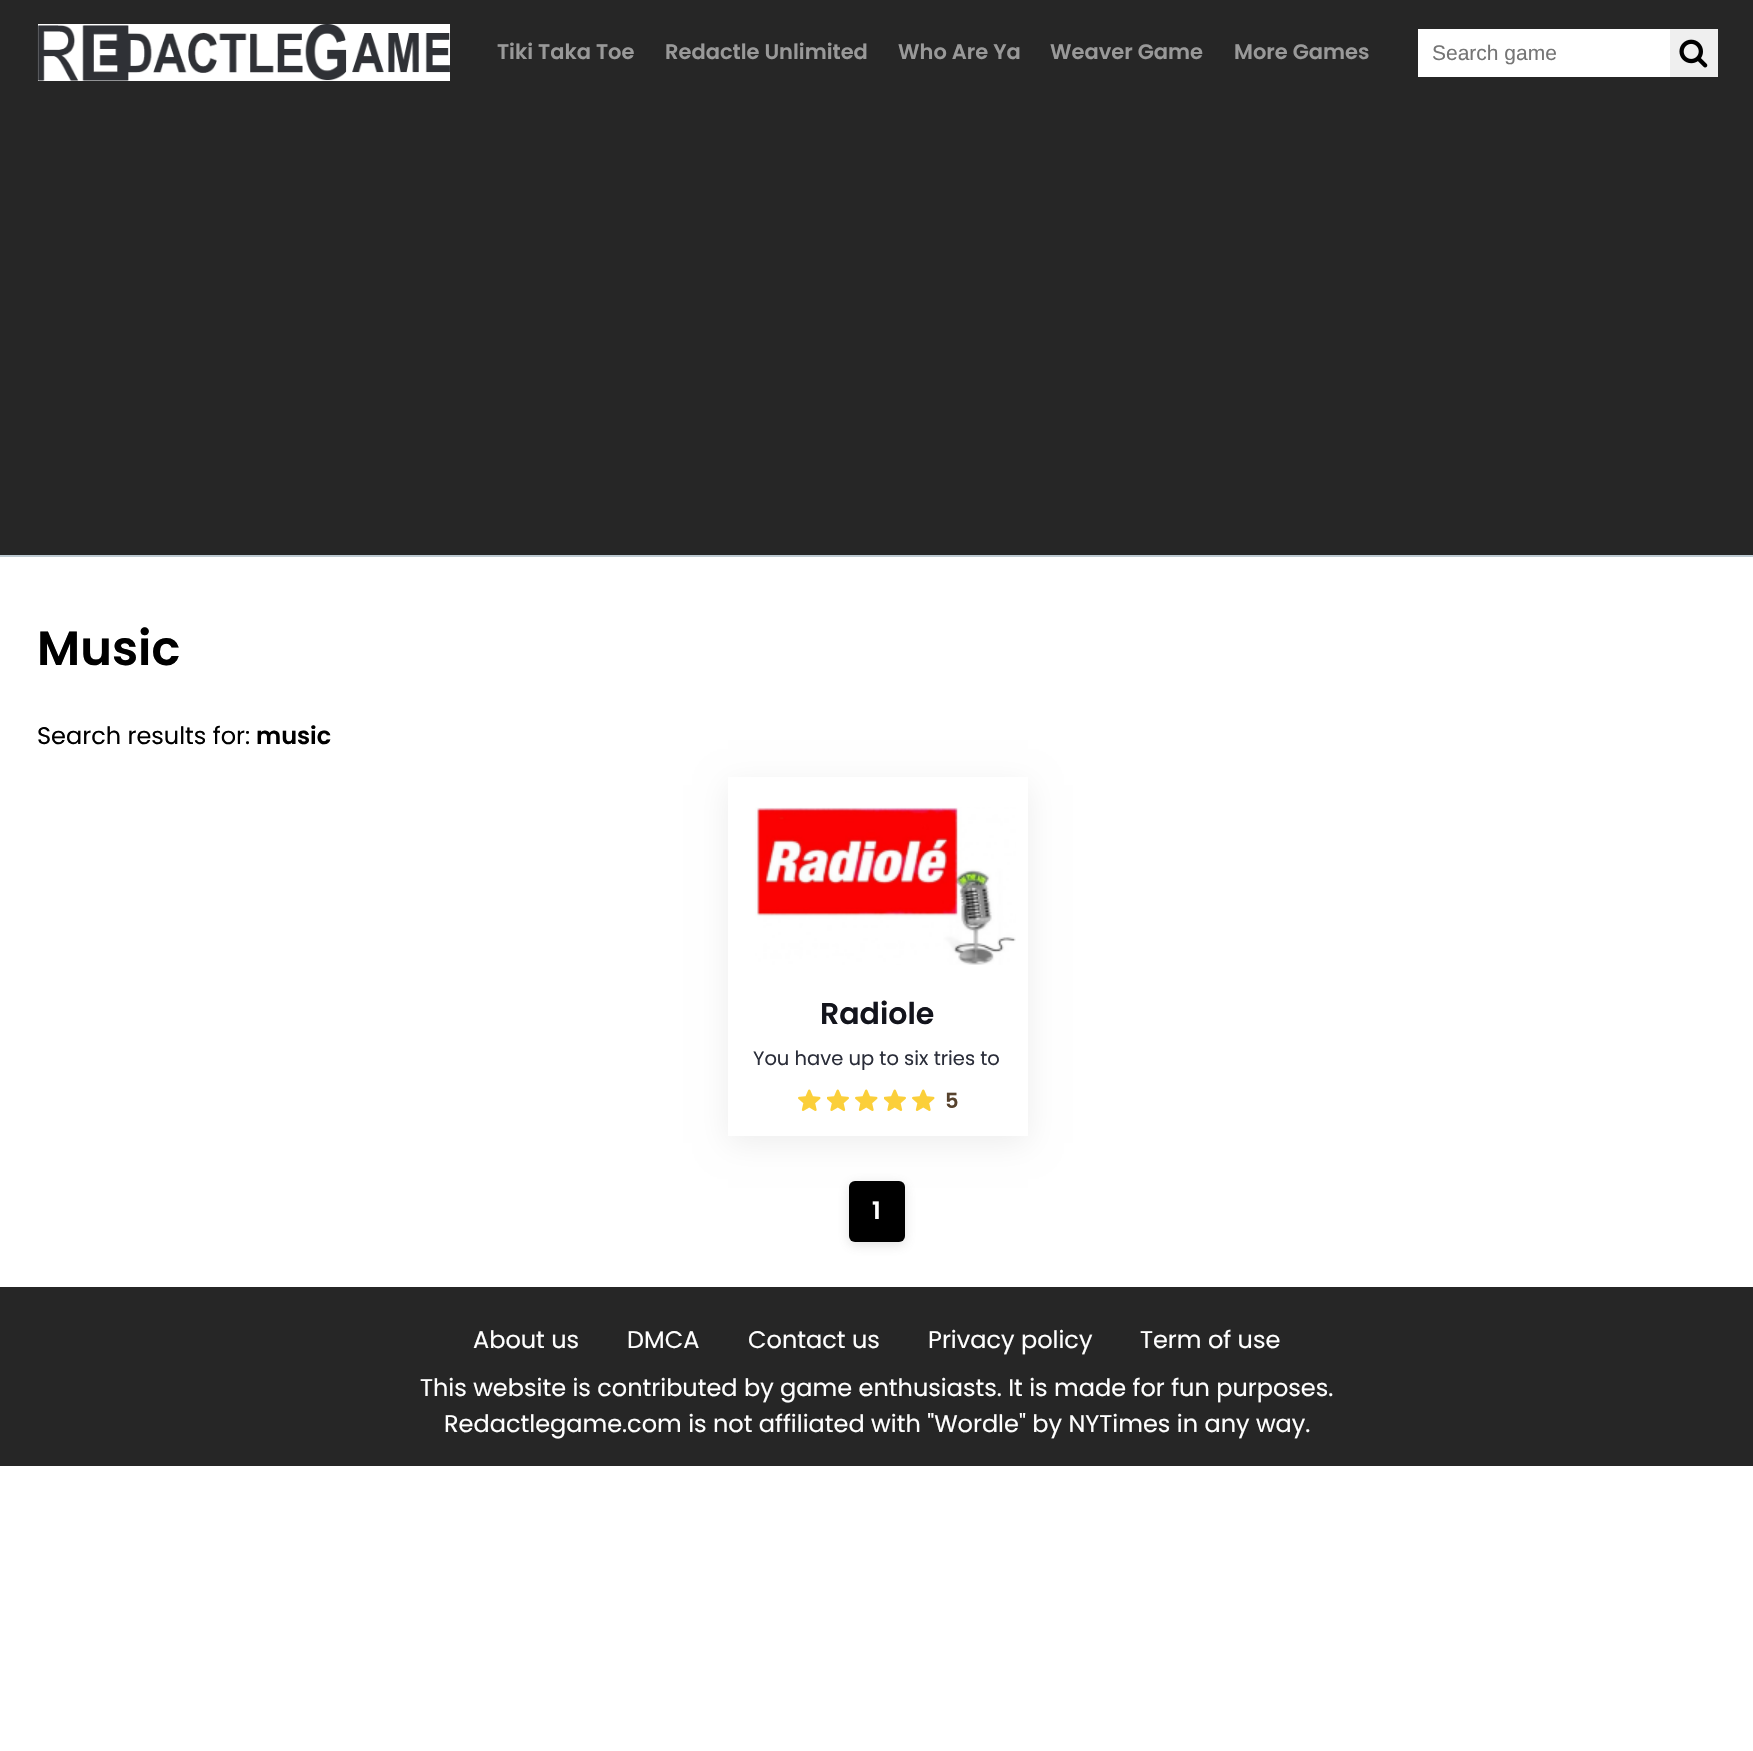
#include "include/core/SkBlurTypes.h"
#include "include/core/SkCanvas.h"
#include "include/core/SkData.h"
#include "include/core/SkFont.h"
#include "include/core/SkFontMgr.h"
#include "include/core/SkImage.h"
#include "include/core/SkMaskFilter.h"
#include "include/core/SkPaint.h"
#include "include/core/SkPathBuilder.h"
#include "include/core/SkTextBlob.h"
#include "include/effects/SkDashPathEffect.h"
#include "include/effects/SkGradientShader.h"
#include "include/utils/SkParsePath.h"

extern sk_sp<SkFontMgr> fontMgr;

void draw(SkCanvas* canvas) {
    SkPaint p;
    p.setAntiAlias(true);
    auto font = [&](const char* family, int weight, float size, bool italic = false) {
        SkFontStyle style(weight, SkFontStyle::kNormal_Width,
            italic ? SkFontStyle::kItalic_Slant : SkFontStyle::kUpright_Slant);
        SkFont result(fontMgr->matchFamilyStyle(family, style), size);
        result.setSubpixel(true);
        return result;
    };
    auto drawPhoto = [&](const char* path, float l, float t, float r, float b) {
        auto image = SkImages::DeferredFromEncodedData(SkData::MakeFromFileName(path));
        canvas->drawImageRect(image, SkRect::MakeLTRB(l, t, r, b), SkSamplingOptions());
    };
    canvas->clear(0xFFFFFFFF);
    {
        const struct { float l, t, r, b; SkColor color; } items[] = {
            {0, 0, 1753, 555, 0xFF262626},
            {0, 555, 1753, 557, 0xFFBDCAD2},
            {38, 24, 450, 81, 0xFFFFFFFF},
        };
        for (auto [l, t, r, b, color] : items) {
            p.setColor(color);
            canvas->drawRect(SkRect::MakeLTRB(l, t, r, b), p);
        }
    }
    drawPhoto("media/1.png", 37, 24, 450, 81);
    auto font1 = font("Poppins", 600, 21);
    p.setColor(0xFF999999);
    {
        const struct { const char* s; float x, y; } items[] = {
            {"Tiki Taka Toe", 497, 59},
            {"Redactle Unlimited", 665, 59},
            {"Who Are Ya", 898, 59},
            {"Weaver Game", 1050, 59},
            {"More Games", 1234, 59},
        };
        for (auto [s, x, y] : items) {
            canvas->drawString(s, x, y, font1, p);
        }
    }
    p.setColor(0xFFFFFFFF);
    canvas->drawRect(SkRect::MakeLTRB(1418, 29, 1670, 77), p);
    auto font2 = font("Liberation Sans", 400, 21);
    p.setColor(0xFF757575);
    canvas->drawString("Search game", 1432, 60, font2, p);
    p.setColor(0xFFEFEFEF);
    canvas->drawRect(SkRect::MakeLTRB(1670, 29, 1718, 77), p);
    drawPhoto("media/2.png", 1679, 39, 1708, 68);
    auto font3 = font("Poppins", 600, 48);
    p.setColor(0xFF000000);
    canvas->drawString("Music", 37, 665, font3, p);
    auto font4 = font("Poppins", 400, 24);
    canvas->drawString("Search results for:", 37, 744, font4, p);
    auto font5 = font("Poppins", 600, 24);
    canvas->drawString("music", 256, 744, font5, p);
    p.setColor(0x12000000);
    p.setMaskFilter(SkMaskFilter::MakeBlur(kNormal_SkBlurStyle, 15));
    canvas->drawRect(SkRect::MakeLTRB(728, 785, 1028, 1143), p);
    p.setMaskFilter(nullptr);
    p.setColor(0xFFFFFFFF);
    canvas->drawRect(SkRect::MakeLTRB(728, 777, 1028, 1136), p);
    drawPhoto("media/3.png", 755, 807, 1016, 965);
    auto font6 = font("Poppins", 600, 30);
    p.setColor(0xFF13141C);
    canvas->drawString("Radiole", 820, 1024, font6, p);
    auto font7 = font("Poppins", 400, 19.5f);
    p.setColor(0xFF2B2E3A);
    canvas->drawString("You have up to six tries to", 753, 1065, font7, p);
    drawPhoto("media/4.png", 798, 1089, 821, 1111);
    drawPhoto("media/5.png", 827, 1089, 849, 1111);
    drawPhoto("media/4.png", 855, 1089, 878, 1111);
    drawPhoto("media/5.png", 884, 1089, 906, 1111);
    drawPhoto("media/4.png", 912, 1089, 935, 1111);
    p.setColor(0xFF57422D);
    canvas->drawString("5", 945, 1108, font1, p);
    p.setColor(0x33636363);
    p.setMaskFilter(SkMaskFilter::MakeBlur(kNormal_SkBlurStyle, 6));
    canvas->drawRoundRect(SkRect::MakeLTRB(849, 1184, 905, 1245), 6, 6, p);
    p.setMaskFilter(nullptr);
    p.setColor(0xFF000000);
    canvas->drawRoundRect(SkRect::MakeLTRB(849, 1181, 905, 1242), 6, 6, p);
    p.setColor(0xFFFFFFFF);
    canvas->drawString("1", 872, 1219, font5, p);
    p.setColor(0xFF262626);
    canvas->drawRect(SkRect::MakeLTRB(0, 1287, 1753, 1466), p);
    p.setColor(0xFFFFFFFF);
    {
        const struct { const char* s; float x, y; } items[] = {
            {"About us", 473, 1348},
            {"DMCA", 627, 1348},
            {"Contact us", 748, 1348},
            {"Privacy policy", 928, 1348},
            {"Term of use", 1140, 1348},
            {"This website is contributed by game enthusiasts. It is made for fun purposes.", 420, 1396},
            {"Redactlegame.com is not affiliated with \"Wordle\" by NYTimes in any way.", 444, 1432},
        };
        for (auto [s, x, y] : items) {
            canvas->drawString(s, x, y, font4, p);
        }
    }
}
